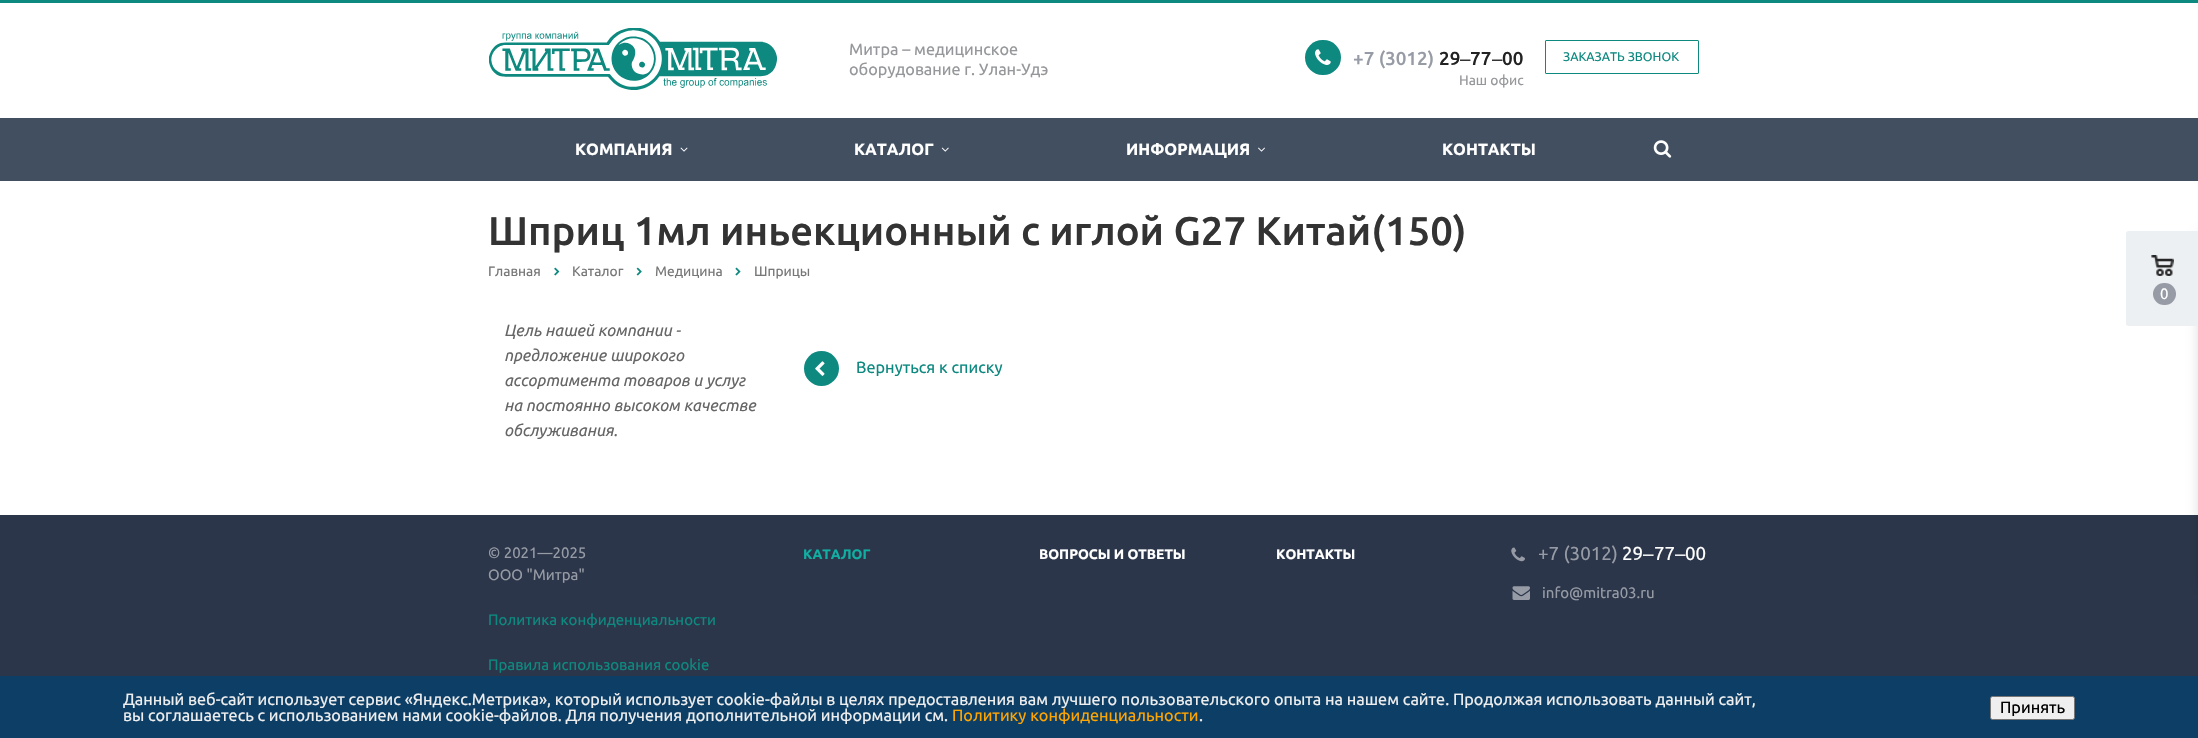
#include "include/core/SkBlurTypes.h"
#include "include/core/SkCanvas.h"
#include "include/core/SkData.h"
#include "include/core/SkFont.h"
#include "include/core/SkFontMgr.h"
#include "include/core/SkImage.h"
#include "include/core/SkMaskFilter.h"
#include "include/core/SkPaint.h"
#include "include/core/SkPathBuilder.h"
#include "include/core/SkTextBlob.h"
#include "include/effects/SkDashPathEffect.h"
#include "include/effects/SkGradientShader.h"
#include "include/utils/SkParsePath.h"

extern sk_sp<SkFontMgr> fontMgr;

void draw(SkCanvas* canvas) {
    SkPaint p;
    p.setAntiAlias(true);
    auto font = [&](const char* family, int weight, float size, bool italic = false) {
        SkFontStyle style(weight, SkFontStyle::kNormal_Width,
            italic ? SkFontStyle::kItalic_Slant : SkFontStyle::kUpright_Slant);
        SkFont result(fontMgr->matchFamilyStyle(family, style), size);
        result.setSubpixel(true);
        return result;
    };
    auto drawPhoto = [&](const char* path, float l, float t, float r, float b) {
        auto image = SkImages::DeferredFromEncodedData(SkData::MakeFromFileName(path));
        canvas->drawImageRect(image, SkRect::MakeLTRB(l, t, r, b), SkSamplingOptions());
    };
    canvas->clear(0xFFFFFFFF);
    p.setColor(0xFF0D897F);
    canvas->drawRect(SkRect::MakeLTRB(0, 0, 2198, 3), p);
    drawPhoto("media/1.png", 489, 28, 778, 90);
    auto font1 = font("Ubuntu", 400, 16.25f);
    p.setColor(0xFF95979A);
    canvas->drawString("Митра – медицинское", 849, 55, font1, p);
    canvas->drawString("оборудование г. Улан-Удэ", 849, 75, font1, p);
    p.setColor(0xFF0D897F);
    canvas->drawRoundRect(SkRect::MakeLTRB(1305, 40, 1341, 75), 17.5f, 17.5f, p);
    drawPhoto("media/2.png", 1315, 49, 1331, 65);
    auto font2 = font("Ubuntu", 500, 18.75f);
    p.setColor(0xFF969BA5);
    canvas->drawString("+7 (3012)", 1353, 65, font2, p);
    p.setColor(0xFF222222);
    canvas->drawString("29", 1439, 65, font2, p);
    auto font3 = font("Liberation Sans", 400, 18.75f);
    canvas->drawString("‒", 1460, 65, font3, p);
    canvas->drawString("77", 1470, 65, font2, p);
    canvas->drawString("‒", 1492, 65, font3, p);
    canvas->drawString("00", 1502, 65, font2, p);
    auto font4 = font("Ubuntu", 400, 13.75f);
    p.setColor(0xFF95979A);
    canvas->drawString("Наш офис", 1459, 85, font4, p);
    p.setStyle(SkPaint::kStroke_Style);
    p.setStrokeWidth(1);
    p.setColor(0xFF0D897F);
    canvas->drawRoundRect(SkRect::MakeLTRB(1545.5f, 40.5f, 1698.5f, 73.5f), 0.5f, 0.5f, p);
    auto font5 = font("Ubuntu", 400, 12.5f);
    p.setStyle(SkPaint::kFill_Style);
    canvas->drawString("ЗАКАЗАТЬ ЗВОНОК", 1563, 61, font5, p);
    p.setColor(0xFF424F60);
    canvas->drawRect(SkRect::MakeLTRB(0, 118, 2198, 181), p);
    auto font6 = font("Ubuntu", 700, 16.25f);
    p.setColor(0xFFFFFFFF);
    canvas->drawString("КОМПАНИЯ", 575, 155, font6, p);
    drawPhoto("media/3.png", 680, 147, 688, 152);
    canvas->drawString("КАТАЛОГ", 854, 155, font6, p);
    drawPhoto("media/4.png", 941, 147, 949, 152);
    canvas->drawString("ИНФОРМАЦИЯ", 1126, 155, font6, p);
    drawPhoto("media/5.png", 1258, 147, 1265, 152);
    canvas->drawString("КОНТАКТЫ", 1442, 155, font6, p);
    drawPhoto("media/6.png", 1653, 140, 1672, 158);
    auto font7 = font("Ubuntu", 500, 40);
    p.setColor(0xFF333333);
    canvas->drawString("Шприц 1мл иньекционный с иглой G27 Китай(150)", 488, 245, font7, p);
    p.setColor(0xFF777777);
    canvas->drawString("Главная", 488, 276, font4, p);
    drawPhoto("media/7.png", 554, 267, 560, 276);
    canvas->drawString("Каталог", 572, 276, font4, p);
    drawPhoto("media/8.png", 636, 267, 642, 276);
    canvas->drawString("Медицина", 655, 276, font4, p);
    drawPhoto("media/9.png", 735, 267, 741, 276);
    canvas->drawString("Шприцы", 754, 276, font4, p);
    auto font8 = font("Ubuntu", 400, 16.25f, true);
    p.setColor(0xFF666666);
    {
        const struct { const char* s; float x, y; } items[] = {
            {"Цель нашей компании -", 504, 336},
            {"предложение широкого", 504, 361},
            {"ассортимента товаров и услуг", 504, 386},
            {"на постоянно высоком качестве", 504, 411},
            {"обслуживания.", 504, 436},
        };
        for (auto [s, x, y] : items) {
            canvas->drawString(s, x, y, font8, p);
        }
    }
    p.setColor(0xFF0D897F);
    canvas->drawCircle(821.5f, 368.5f, 17.5f, p);
    drawPhoto("media/10.png", 815, 361, 825, 376);
    canvas->drawString("Вернуться к списку", 856, 373, font1, p);
    p.setColor(0xFF2C364A);
    canvas->drawRect(SkRect::MakeLTRB(0, 515, 2198, 676), p);
    p.setColor(0x26000000);
    p.setMaskFilter(SkMaskFilter::MakeBlur(kNormal_SkBlurStyle, 6));
    canvas->drawRect(SkRect::MakeLTRB(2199, 235, 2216, 589), p);
    p.setMaskFilter(nullptr);
    p.setColor(0xFFEDF0F3);
    canvas->drawPath(SkPathBuilder().moveTo(2128.5f, 231).lineTo(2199, 231).lineTo(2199, 326).lineTo(2128.5f, 326).cubicTo(2127, 326, 2126, 325, 2126, 323.5f).lineTo(2126, 233.5f).cubicTo(2126, 232, 2127, 231, 2128.5f, 231).close().detach(), p);
    canvas->drawRect(SkRect::MakeLTRB(2126, 324, 2127, 325), p);
    drawPhoto("media/11.png", 2151, 255, 2174, 276);
    p.setColor(0xFF969BA5);
    canvas->drawRoundRect(SkRect::MakeLTRB(2153, 283, 2176, 305), 11, 11, p);
    auto font9 = font("Ubuntu", 400, 15);
    p.setColor(0xFFFFFFFF);
    canvas->drawString("0", 2160, 299, font9, p);
    p.setColor(0xFF969BA5);
    canvas->drawString("© 2021—2025", 488, 558, font9, p);
    canvas->drawString("ООО \"Митра\"", 488, 580, font9, p);
    p.setColor(0xFF0D897F);
    canvas->drawString("Политика конфиденциальности", 488, 625, font9, p);
    canvas->drawString("Правила использования cookie", 488, 670, font9, p);
    auto font10 = font("Ubuntu", 700, 13.75f);
    p.setColor(0xFF11AEA2);
    canvas->drawString("КАТАЛОГ", 803, 559, font10, p);
    p.setColor(0xFFFFFFFF);
    canvas->drawString("ВОПРОСЫ И ОТВЕТЫ", 1039, 559, font10, p);
    canvas->drawString("КОНТАКТЫ", 1276, 559, font10, p);
    drawPhoto("media/12.png", 1511, 547, 1525, 562);
    auto font11 = font("Ubuntu", 400, 18.75f);
    p.setColor(0xFF969BA5);
    canvas->drawString("+7 (3012)", 1538, 560, font11, p);
    p.setColor(0xFFFFFFFF);
    canvas->drawString("29", 1622, 560, font11, p);
    canvas->drawString("‒", 1643, 560, font3, p);
    canvas->drawString("77", 1654, 560, font11, p);
    canvas->drawString("‒", 1675, 560, font3, p);
    canvas->drawString("00", 1685, 560, font11, p);
    drawPhoto("media/13.png", 1512, 586, 1530, 600);
    p.setColor(0xFF969BA5);
    canvas->drawString("info@mitra03.ru", 1542, 598, font9, p);
    p.setColor(0xFF0D3E66);
    canvas->drawRect(SkRect::MakeLTRB(0, 676, 2198, 738), p);
    p.setColor(0xFFEEEEEE);
    canvas->drawString("Данный веб-сайт использует сервис «Яндекс.Метрика», который использует cookie-файлы в целях предоставления вам лучшего пользовательского опыта на нашем сайте. Продолжая использовать данный сайт,", 123, 705, font1, p);
    canvas->drawString("вы соглашаетесь с использованием нами cookie-файлов. Для получения дополнительной информации см.", 123, 721, font1, p);
    p.setColor(0xFFFFA500);
    canvas->drawString("Политику конфиденциальности", 952, 721, font1, p);
    p.setColor(0xFFEEEEEE);
    canvas->drawString(".", 1199, 721, font1, p);
    p.setColor(0xFFEFEFEF);
    canvas->drawRoundRect(SkRect::MakeLTRB(1990.5f, 696.5f, 2074.5f, 719.5f), 2, 2, p);
    p.setStyle(SkPaint::kStroke_Style);
    p.setColor(0xFF767676);
    canvas->drawRoundRect(SkRect::MakeLTRB(1990.5f, 696.5f, 2074.5f, 719.5f), 2, 2, p);
    p.setStyle(SkPaint::kFill_Style);
    p.setColor(0xFF000000);
    canvas->drawString("Принять", 2000, 713, font1, p);
}
